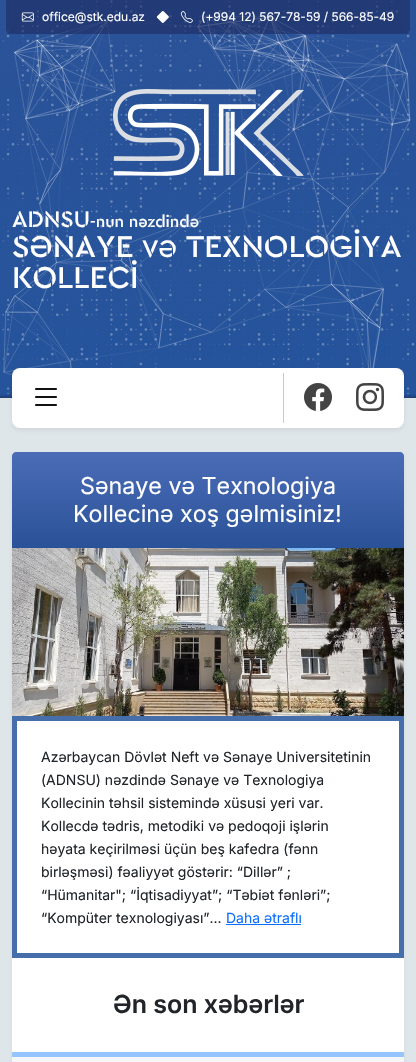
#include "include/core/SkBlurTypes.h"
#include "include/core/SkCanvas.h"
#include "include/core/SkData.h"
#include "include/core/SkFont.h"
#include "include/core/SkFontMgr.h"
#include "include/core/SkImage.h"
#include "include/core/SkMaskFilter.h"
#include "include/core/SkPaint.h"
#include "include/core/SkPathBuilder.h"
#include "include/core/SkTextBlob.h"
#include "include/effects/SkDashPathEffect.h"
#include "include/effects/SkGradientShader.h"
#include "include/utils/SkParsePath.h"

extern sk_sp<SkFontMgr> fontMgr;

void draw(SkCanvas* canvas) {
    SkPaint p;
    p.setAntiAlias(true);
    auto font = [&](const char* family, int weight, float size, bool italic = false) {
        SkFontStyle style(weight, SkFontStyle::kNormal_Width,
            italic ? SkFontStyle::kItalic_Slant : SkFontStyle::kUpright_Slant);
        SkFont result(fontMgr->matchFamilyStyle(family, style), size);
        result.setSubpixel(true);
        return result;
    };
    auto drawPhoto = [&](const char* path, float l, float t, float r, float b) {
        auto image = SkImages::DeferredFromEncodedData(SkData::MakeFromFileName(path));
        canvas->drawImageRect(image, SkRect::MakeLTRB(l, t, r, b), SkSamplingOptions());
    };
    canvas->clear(0xFFDFE6E9);
    drawPhoto("media/1.png", 0, 0, 416, 398);
    drawPhoto("media/2.png", 3, 15, 411, 376);
    p.setColor(0x911A265C);
    canvas->drawPath(SkPathBuilder().moveTo(6, 0).lineTo(410, 0).lineTo(410, 30).cubicTo(410, 32, 408, 34, 406, 34).lineTo(10, 34).cubicTo(8, 34, 6, 32, 6, 30).close().detach(), p);
    drawPhoto("media/3.png", 21, 12, 34, 22);
    auto font1 = font("Inter", 400, 12);
    p.setColor(0xFFFFFFFF);
    canvas->drawString("office@stk.edu.az", 42, 21, font1, p);
    drawPhoto("media/4.png", 156, 11, 169, 23);
    drawPhoto("media/5.png", 180, 11, 193, 23);
    canvas->drawString("(+994 12) 567-78-59 / 566-85-49", 201, 21, font1, p);
    drawPhoto("media/6.png", 113, 89, 304, 176);
    auto font2 = font("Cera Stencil", 500, 23.5f, true);
    canvas->drawString("ADNSU", 12, 227, font2, p);
    auto font3 = font("Cera Stencil", 500, 16.5f, true);
    canvas->drawString("-nun nəzdində", 90, 227, font3, p);
    auto font4 = font("Cera Stencil", 500, 31.5f, true);
    canvas->drawString("SƏNAYE", 12, 257, font4, p);
    auto font5 = font("Cera Stencil", 500, 25, true);
    canvas->drawString("VƏ", 142, 257, font5, p);
    canvas->drawString("TEXNOLOGİYA", 186, 257, font4, p);
    canvas->drawString("KOLLECİ", 12, 288, font4, p);
    p.setColor(0x12000000);
    p.setMaskFilter(SkMaskFilter::MakeBlur(kNormal_SkBlurStyle, 2));
    canvas->drawRoundRect(SkRect::MakeLTRB(12, 370, 404, 430), 8, 8, p);
    p.setMaskFilter(nullptr);
    p.setColor(0xFFFFFFFF);
    canvas->drawRoundRect(SkRect::MakeLTRB(12, 368, 404, 428), 8, 8, p);
    drawPhoto("media/7.png", 35, 388, 57, 406);
    p.setColor(0xFFC8C9CA);
    canvas->drawRect(SkRect::MakeLTRB(283, 373, 284, 423), p);
    drawPhoto("media/8.png", 304, 383, 332, 411);
    drawPhoto("media/9.png", 356, 383, 384, 411);
    p.setColor(0x12212529);
    p.setMaskFilter(SkMaskFilter::MakeBlur(kNormal_SkBlurStyle, 2));
    canvas->drawRect(SkRect::MakeLTRB(12, 454, 404, 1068), p);
    p.setMaskFilter(nullptr);
    {
        const SkColor colors[] = {0xFF4B6CB7, 0xFF2A5298};
        const float stops[] = {0, 1};
        const SkPoint ends[] = {{208, 452}, {208, 548}};
        p.setShader(SkGradientShader::MakeLinear(ends, colors, stops, 2, SkTileMode::kClamp));
        p.setAlpha(255);
    }
    canvas->drawPath(SkPathBuilder().moveTo(16, 452).lineTo(400, 452).cubicTo(402, 452, 404, 454, 404, 456).lineTo(404, 548).lineTo(12, 548).lineTo(12, 456).cubicTo(12, 454, 14, 452, 16, 452).close().detach(), p);
    auto font6 = font("Inter", 400, 23.25f);
    p.setShader(nullptr);
    p.setColor(0xFFFFFFFF);
    canvas->drawString("Sənaye və Texnologiya", 80, 494, font6, p);
    canvas->drawString("Kollecinə xoş gəlmisiniz!", 73, 522, font6, p);
    canvas->drawRect(SkRect::MakeLTRB(12, 721, 404, 1052), p);
    drawPhoto("media/10.png", 12, 548, 404, 716);
    p.setColor(0xB3FFFFFF);
    canvas->drawRoundRect(SkRect::MakeLTRB(37, 679, 49, 690), 5.5f, 5.5f, p);
    p.setColor(0xB3CCCCCC);
    canvas->drawCircle(57, 685, 4, p);
    canvas->drawCircle(71, 685, 4, p);
    canvas->drawCircle(85, 685, 4, p);
    canvas->drawCircle(99, 685, 4, p);
    canvas->drawCircle(113, 685, 4, p);
    canvas->drawCircle(127, 685, 4, p);
    p.setStyle(SkPaint::kStroke_Style);
    p.setStrokeWidth(5);
    p.setColor(0xFF466EAB);
    canvas->drawRect(SkRect::MakeLTRB(14.5f, 718.5f, 401.5f, 955.5f), p);
    auto font7 = font("Inter", 400, 14);
    p.setStyle(SkPaint::kFill_Style);
    p.setColor(0xFF212529);
    {
        const struct { const char* s; float x, y; } items[] = {
            {"Azərbaycan Dövlət Neft və Sənaye Universitetinin", 41, 762},
            {"(ADNSU) nəzdində Sənaye və Texnologiya", 41, 785},
            {"Kollecinin təhsil sistemində xüsusi yeri var.", 41, 808},
            {"Kollecdə tədris, metodiki və pedoqoji işlərin", 41, 831},
            {"həyata keçirilməsi üçün beş kafedra (fənn", 41, 854},
            {"birləşməsi) fəaliyyət göstərir: “Dillər” ;", 41, 877},
            {"“Hümanitar\"; “İqtisadiyyat”; “Təbiət fənləri”;", 41, 900},
            {"“Kompüter texnologiyası”...", 41, 923},
        };
        for (auto [s, x, y] : items) {
            canvas->drawString(s, x, y, font7, p);
        }
    }
    p.setColor(0xFF0D6EFD);
    canvas->drawString("Daha ətraflı", 226, 923, font7, p);
    canvas->drawRect(SkRect::MakeLTRB(226, 924, 301, 925), p);
    p.setColor(0xFF95C5FC);
    canvas->drawRect(SkRect::MakeLTRB(12, 1052, 404, 1057), p);
    auto font8 = font("Inter", 600, 25);
    p.setColor(0xFF212529);
    canvas->drawString("Ən son xəbərlər", 113, 1013, font8, p);
    p.setColor(0xFFF5F6FA);
    canvas->drawRect(SkRect::MakeLTRB(12, 1057, 404, 1062), p);
}
